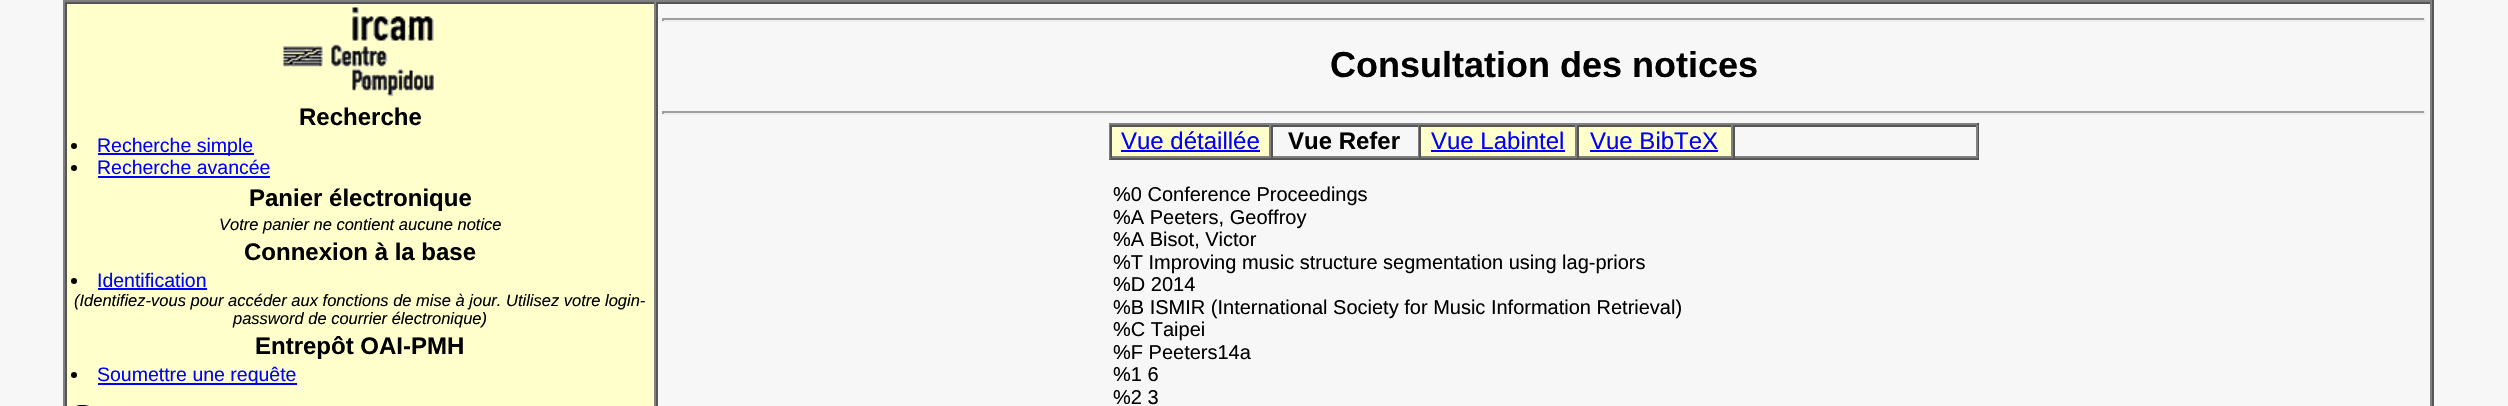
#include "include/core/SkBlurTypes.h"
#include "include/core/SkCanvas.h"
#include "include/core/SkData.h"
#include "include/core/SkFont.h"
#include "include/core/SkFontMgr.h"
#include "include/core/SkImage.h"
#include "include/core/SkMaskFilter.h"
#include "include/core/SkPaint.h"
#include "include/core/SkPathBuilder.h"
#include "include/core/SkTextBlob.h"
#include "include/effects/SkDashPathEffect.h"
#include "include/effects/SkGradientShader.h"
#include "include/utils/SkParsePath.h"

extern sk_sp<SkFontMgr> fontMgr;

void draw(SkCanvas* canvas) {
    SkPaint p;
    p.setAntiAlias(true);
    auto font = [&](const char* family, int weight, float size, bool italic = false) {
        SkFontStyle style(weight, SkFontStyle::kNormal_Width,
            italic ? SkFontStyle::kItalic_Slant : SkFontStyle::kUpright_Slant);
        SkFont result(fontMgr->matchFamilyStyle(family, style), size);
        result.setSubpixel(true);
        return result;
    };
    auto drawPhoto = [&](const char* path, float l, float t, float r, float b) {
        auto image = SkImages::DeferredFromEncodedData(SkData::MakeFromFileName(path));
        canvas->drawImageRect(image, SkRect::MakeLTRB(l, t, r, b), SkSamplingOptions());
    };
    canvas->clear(0xFFF7F7F7);
    {
        const struct { float l, t, r, b; SkColor color; } items[] = {
            {63, 0, 2433, 2, 0xFF808080},
            {2432, 0, 2434, 406, 0xFF555555},
            {63, 0, 65, 406, 0xFF808080},
            {67, 4, 654, 406, 0xFFFFFFCC},
            {65, 2, 2432, 4, 0xFF555555},
            {654, 2, 656, 406, 0xFF808080},
            {65, 2, 67, 406, 0xFF555555},
        };
        for (auto [l, t, r, b, color] : items) {
            p.setColor(color);
            canvas->drawRect(SkRect::MakeLTRB(l, t, r, b), p);
        }
    }
    drawPhoto("media/1.png", 283, 7, 434, 97);
    auto font1 = font("Liberation Sans", 700, 24);
    p.setColor(0xFF000000);
    canvas->drawString("Recherche", 299, 125, font1, p);
    canvas->drawCircle(74, 146, 3, p);
    p.setColor(0xFF0000FF);
    canvas->drawRect(SkRect::MakeLTRB(98, 153, 254, 155), p);
    auto font2 = font("Liberation Sans", 400, 19.5f);
    canvas->drawString("Recherche simple", 97, 152, font2, p);
    p.setColor(0xFF000000);
    canvas->drawCircle(74, 168, 3, p);
    p.setColor(0xFF0000FF);
    canvas->drawString("Recherche avancée", 97, 174, font2, p);
    canvas->drawRect(SkRect::MakeLTRB(98, 176, 270, 178), p);
    p.setColor(0xFF000000);
    canvas->drawString("Panier électronique", 249, 206, font1, p);
    auto font3 = font("Liberation Sans", 400, 16.5f, true);
    canvas->drawString("Votre panier ne contient aucune notice", 219, 230, font3, p);
    canvas->drawString("Connexion à la base", 244, 260, font1, p);
    canvas->drawCircle(74, 281, 3, p);
    p.setColor(0xFF0000FF);
    canvas->drawString("Identification", 97, 287, font2, p);
    canvas->drawRect(SkRect::MakeLTRB(98, 288, 207, 290), p);
    p.setColor(0xFF000000);
    canvas->drawString("(Identifiez-vous pour accéder aux fonctions de mise à jour. Utilisez votre login-", 74, 306, font3, p);
    canvas->drawString("password de courrier électronique)", 233, 324, font3, p);
    canvas->drawString("Entrepôt OAI-PMH", 255, 354, font1, p);
    canvas->drawCircle(74, 375, 3, p);
    p.setColor(0xFF0000FF);
    canvas->drawRect(SkRect::MakeLTRB(98, 383, 297, 385), p);
    canvas->drawString("Soumettre une requête", 97, 381, font2, p);
    drawPhoto("media/2.png", 76, 405, 89, 406);
    {
        const struct { float l, t, r, b; SkColor color; } items[] = {
            {2430, 2, 2432, 406, 0xFF808080},
            {656, 2, 658, 406, 0xFF555555},
            {662, 18, 2426, 20, 0xFF9F9F9F},
            {2424, 18, 2426, 21, 0xFFEEEEEE},
            {662, 20, 2426, 22, 0xFFEEEEEE},
            {662, 18, 664, 21, 0xFF9F9F9F},
        };
        for (auto [l, t, r, b, color] : items) {
            p.setColor(color);
            canvas->drawRect(SkRect::MakeLTRB(l, t, r, b), p);
        }
    }
    auto font4 = font("Liberation Sans", 700, 36);
    p.setColor(0xFF000000);
    canvas->drawString("Consultation des notices", 1330, 77, font4, p);
    {
        const struct { float l, t, r, b; SkColor color; } items[] = {
            {662, 111, 2426, 113, 0xFF9F9F9F},
            {2424, 111, 2426, 114, 0xFFEEEEEE},
            {662, 113, 2426, 115, 0xFFEEEEEE},
            {662, 111, 664, 114, 0xFF9F9F9F},
            {1109, 123, 1979, 125, 0xFF808080},
            {1977, 123, 1979, 159, 0xFF555555},
            {1109, 158, 1979, 160, 0xFF555555},
            {1109, 123, 1111, 159, 0xFF808080},
            {1112, 127, 1269, 156, 0xFFFFFFCC},
            {1110, 125, 1977, 127, 0xFF555555},
            {1269, 125, 1271, 158, 0xFF808080},
            {1110, 156, 1271, 158, 0xFF808080},
            {1110, 125, 1112, 158, 0xFF555555},
        };
        for (auto [l, t, r, b, color] : items) {
            p.setColor(color);
            canvas->drawRect(SkRect::MakeLTRB(l, t, r, b), p);
        }
    }
    auto font5 = font("Liberation Sans", 400, 24);
    p.setColor(0xFF0000FF);
    canvas->drawString("Vue détaillée", 1121, 149, font5, p);
    {
        const struct { float l, t, r, b; SkColor color; } items[] = {
            {1121, 150, 1260, 152, 0xFF0000FF},
            {1418, 125, 1419, 158, 0xFF808080},
            {1271, 156, 1419, 158, 0xFF808080},
            {1271, 125, 1273, 158, 0xFF555555},
        };
        for (auto [l, t, r, b, color] : items) {
            p.setColor(color);
            canvas->drawRect(SkRect::MakeLTRB(l, t, r, b), p);
        }
    }
    p.setColor(0xFF000000);
    canvas->drawString("Vue Refer", 1288, 149, font1, p);
    {
        const struct { float l, t, r, b; SkColor color; } items[] = {
            {1421, 127, 1575, 156, 0xFFFFFFCC},
            {1575, 125, 1577, 158, 0xFF808080},
            {1419, 156, 1577, 158, 0xFF808080},
            {1419, 125, 1421, 158, 0xFF555555},
        };
        for (auto [l, t, r, b, color] : items) {
            p.setColor(color);
            canvas->drawRect(SkRect::MakeLTRB(l, t, r, b), p);
        }
    }
    p.setColor(0xFF0000FF);
    canvas->drawString("Vue Labintel", 1431, 149, font5, p);
    {
        const struct { float l, t, r, b; SkColor color; } items[] = {
            {1431, 150, 1565, 152, 0xFF0000FF},
            {1579, 127, 1731, 156, 0xFFFFFFCC},
            {1731, 125, 1733, 158, 0xFF808080},
            {1577, 156, 1733, 158, 0xFF808080},
            {1577, 125, 1579, 158, 0xFF555555},
        };
        for (auto [l, t, r, b, color] : items) {
            p.setColor(color);
            canvas->drawRect(SkRect::MakeLTRB(l, t, r, b), p);
        }
    }
    p.setColor(0xFF0000FF);
    canvas->drawString("Vue BibTeX", 1590, 149, font5, p);
    {
        const struct { float l, t, r, b; SkColor color; } items[] = {
            {1590, 150, 1718, 152, 0xFF0000FF},
            {1976, 125, 1978, 158, 0xFF808080},
            {1733, 156, 1977, 158, 0xFF808080},
            {1733, 125, 1735, 158, 0xFF555555},
        };
        for (auto [l, t, r, b, color] : items) {
            p.setColor(color);
            canvas->drawRect(SkRect::MakeLTRB(l, t, r, b), p);
        }
    }
    auto font6 = font("Liberation Sans", 400, 20);
    p.setColor(0xFF000000);
    {
        const struct { const char* s; float x, y; } items[] = {
            {"%0 Conference Proceedings", 1113, 201},
            {"%A Peeters, Geoffroy", 1113, 224},
            {"%A Bisot, Victor", 1113, 246},
            {"%T Improving music structure segmentation using lag-priors", 1113, 269},
            {"%D 2014", 1113, 291},
            {"%B ISMIR (International Society for Music Information Retrieval)", 1113, 314},
            {"%C Taipei", 1113, 336},
            {"%F Peeters14a", 1113, 359},
            {"%1 6", 1113, 381},
            {"%2 3", 1113, 404},
        };
        for (auto [s, x, y] : items) {
            canvas->drawString(s, x, y, font6, p);
        }
    }
}
